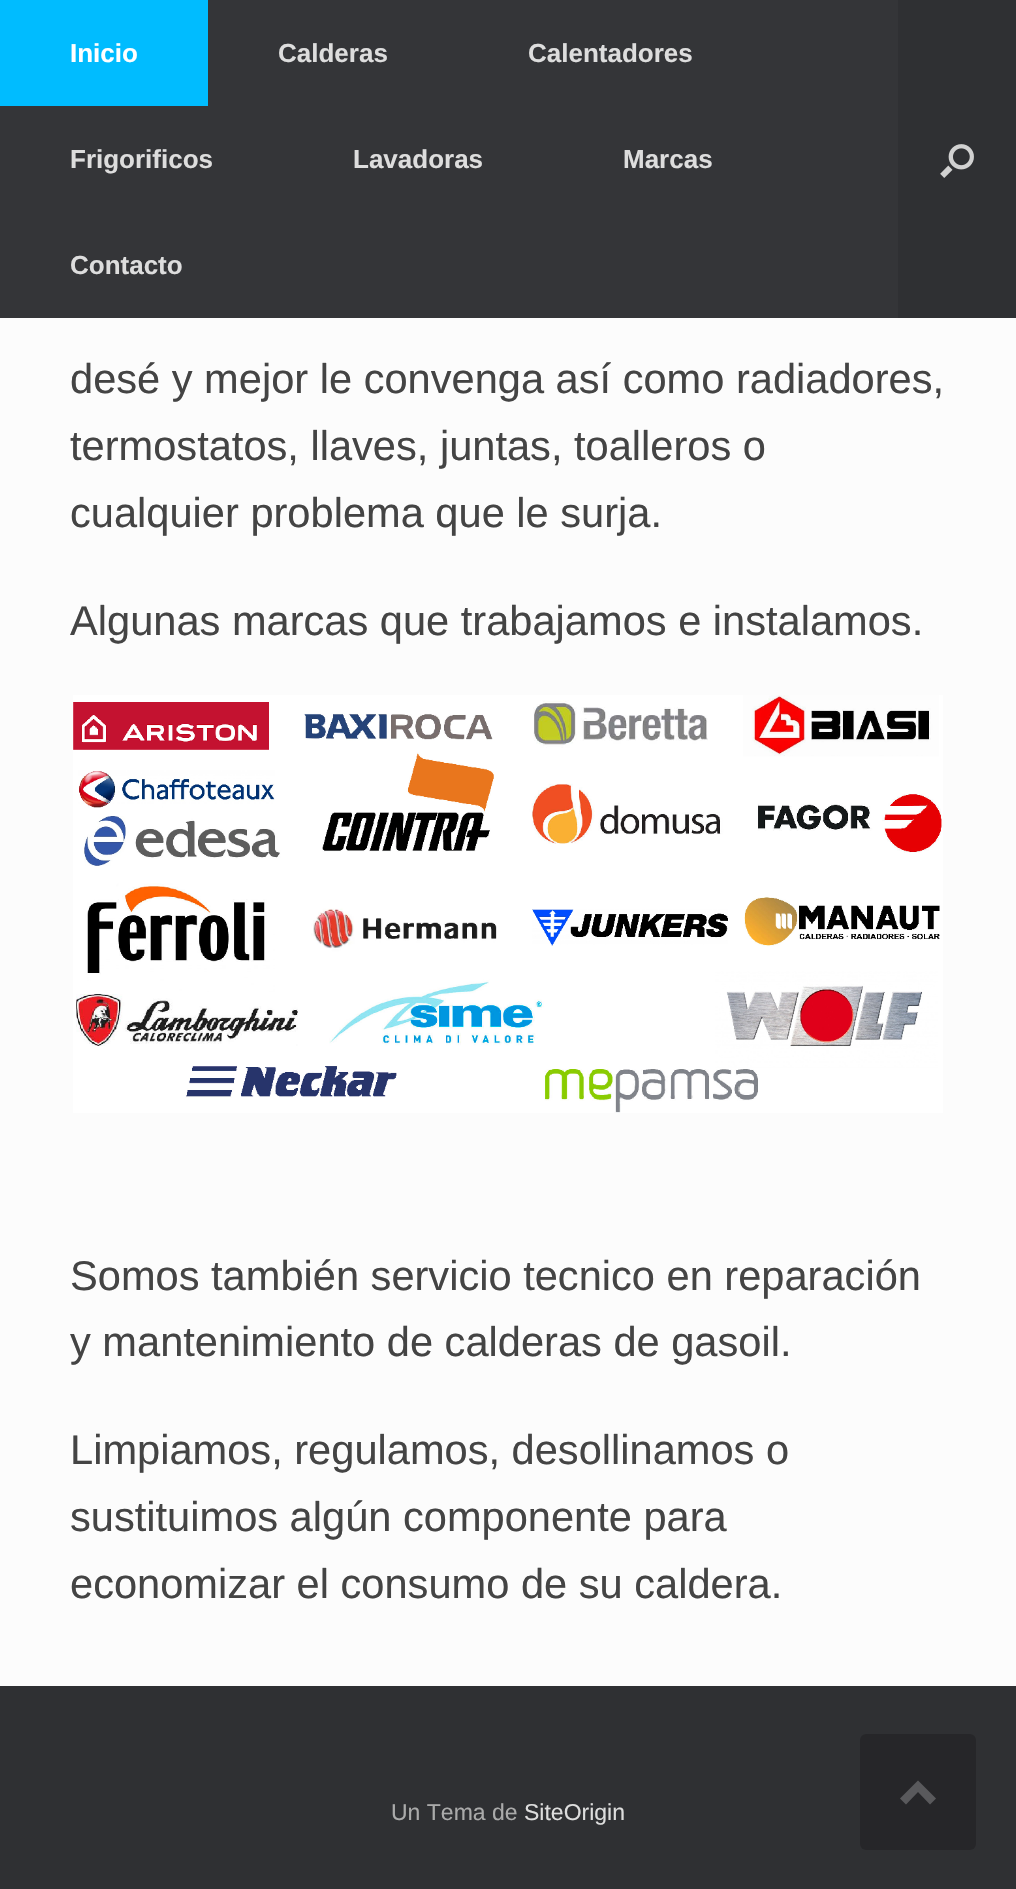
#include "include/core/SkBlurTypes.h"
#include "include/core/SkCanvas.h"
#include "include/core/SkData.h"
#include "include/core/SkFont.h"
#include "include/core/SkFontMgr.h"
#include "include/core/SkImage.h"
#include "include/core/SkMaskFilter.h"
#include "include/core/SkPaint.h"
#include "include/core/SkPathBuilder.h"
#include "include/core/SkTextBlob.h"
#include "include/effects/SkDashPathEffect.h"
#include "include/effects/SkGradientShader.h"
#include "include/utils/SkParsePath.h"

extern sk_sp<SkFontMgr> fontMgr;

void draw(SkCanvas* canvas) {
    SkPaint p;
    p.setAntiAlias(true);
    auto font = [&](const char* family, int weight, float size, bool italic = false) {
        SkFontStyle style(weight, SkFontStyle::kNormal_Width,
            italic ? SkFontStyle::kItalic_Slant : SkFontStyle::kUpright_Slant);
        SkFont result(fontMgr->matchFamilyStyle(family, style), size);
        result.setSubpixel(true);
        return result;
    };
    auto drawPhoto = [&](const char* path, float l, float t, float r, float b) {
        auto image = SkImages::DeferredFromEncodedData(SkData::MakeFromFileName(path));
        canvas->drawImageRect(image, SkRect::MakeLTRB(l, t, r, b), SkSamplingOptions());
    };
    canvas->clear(0xFF2F3033);
    p.setColor(0xFF343538);
    canvas->drawRect(SkRect::MakeLTRB(0, 0, 898, 318), p);
    p.setColor(0xFF00BCFF);
    canvas->drawRect(SkRect::MakeLTRB(0, 0, 208, 106), p);
    auto font1 = font("Liberation Sans", 700, 26);
    p.setColor(0xFFFFFFFF);
    canvas->drawString("Inicio", 70, 62, font1, p);
    p.setColor(0xFFDDDDDD);
    {
        const struct { const char* s; float x, y; } items[] = {
            {"Calderas", 278, 62},
            {"Calentadores", 528, 62},
            {"Frigorificos", 70, 168},
            {"Lavadoras", 353, 168},
            {"Marcas", 623, 168},
            {"Contacto", 70, 274},
        };
        for (auto [s, x, y] : items) {
            canvas->drawString(s, x, y, font1, p);
        }
    }
    drawPhoto("media/1.png", 940, 144, 974, 178);
    p.setColor(0xFFFCFCFC);
    canvas->drawRect(SkRect::MakeLTRB(0, 318, 1016, 1686), p);
    auto font2 = font("Liberation Sans", 400, 41.6f);
    p.setColor(0xFF444444);
    {
        const struct { const char* s; float x, y; } items[] = {
            {"desé y mejor le convenga así como radiadores,", 70, 393},
            {"termostatos, llaves, juntas, toalleros o", 70, 460},
            {"cualquier problema que le surja.", 70, 527},
            {"Algunas marcas que trabajamos e instalamos.", 70, 635},
        };
        for (auto [s, x, y] : items) {
            canvas->drawString(s, x, y, font2, p);
        }
    }
    drawPhoto("media/2.png", 73, 695, 943, 1113);
    {
        const struct { const char* s; float x, y; } items[] = {
            {"Somos también servicio tecnico en reparación", 70, 1290},
            {"y mantenimiento de calderas de gasoil.", 70, 1356},
            {"Limpiamos, regulamos, desollinamos o", 70, 1464},
            {"sustituimos algún componente para", 70, 1531},
            {"economizar el consumo de su caldera.", 70, 1598},
        };
        for (auto [s, x, y] : items) {
            canvas->drawString(s, x, y, font2, p);
        }
    }
    auto font3 = font("Liberation Sans", 400, 23);
    p.setColor(0xFFAAAAAA);
    canvas->drawString("Un Tema de", 391, 1820, font3, p);
    p.setColor(0xFFDDDDDD);
    canvas->drawString("SiteOrigin", 524, 1820, font3, p);
    p.setColor(0xFF262629);
    canvas->drawRoundRect(SkRect::MakeLTRB(860, 1734, 976, 1850), 6, 6, p);
    p.setColor(0xFF59595C);
    canvas->drawPath(SkPathBuilder().moveTo(936, 1798.5f).lineTo(918, 1780.5f).lineTo(900, 1798.5f).lineTo(906, 1804.5f).lineTo(918, 1792).lineTo(930, 1804.5f).close().detach(), p);
}
